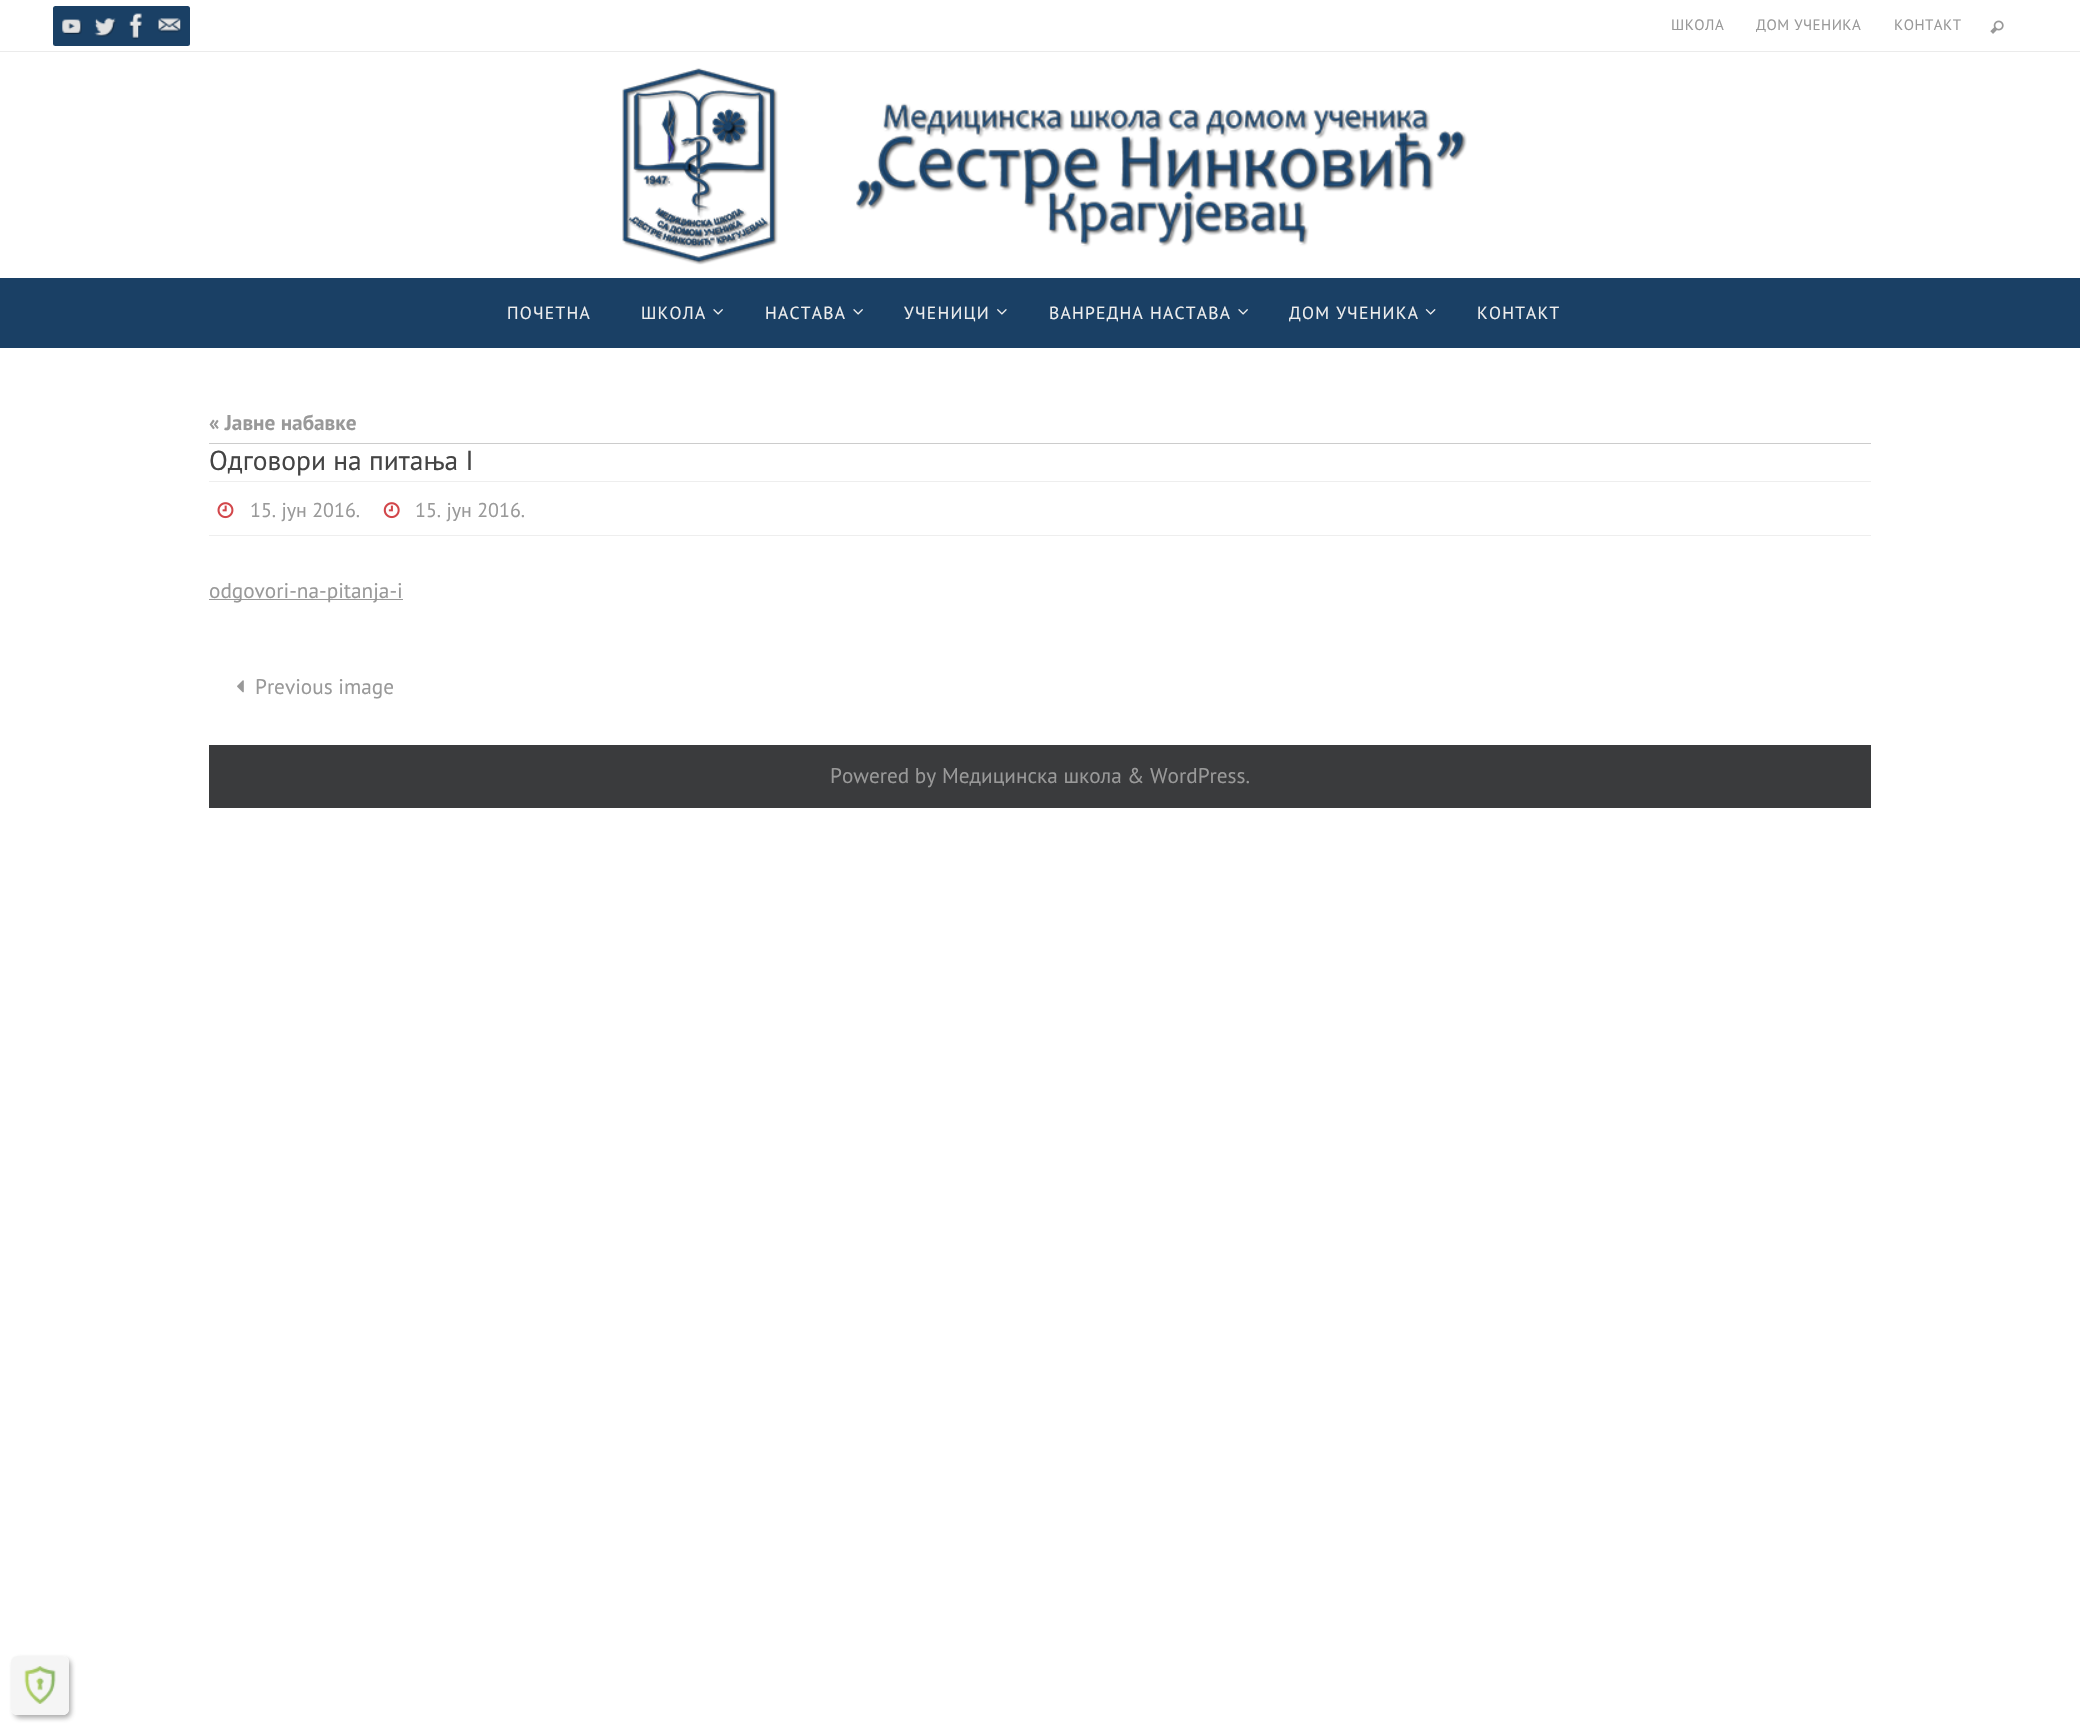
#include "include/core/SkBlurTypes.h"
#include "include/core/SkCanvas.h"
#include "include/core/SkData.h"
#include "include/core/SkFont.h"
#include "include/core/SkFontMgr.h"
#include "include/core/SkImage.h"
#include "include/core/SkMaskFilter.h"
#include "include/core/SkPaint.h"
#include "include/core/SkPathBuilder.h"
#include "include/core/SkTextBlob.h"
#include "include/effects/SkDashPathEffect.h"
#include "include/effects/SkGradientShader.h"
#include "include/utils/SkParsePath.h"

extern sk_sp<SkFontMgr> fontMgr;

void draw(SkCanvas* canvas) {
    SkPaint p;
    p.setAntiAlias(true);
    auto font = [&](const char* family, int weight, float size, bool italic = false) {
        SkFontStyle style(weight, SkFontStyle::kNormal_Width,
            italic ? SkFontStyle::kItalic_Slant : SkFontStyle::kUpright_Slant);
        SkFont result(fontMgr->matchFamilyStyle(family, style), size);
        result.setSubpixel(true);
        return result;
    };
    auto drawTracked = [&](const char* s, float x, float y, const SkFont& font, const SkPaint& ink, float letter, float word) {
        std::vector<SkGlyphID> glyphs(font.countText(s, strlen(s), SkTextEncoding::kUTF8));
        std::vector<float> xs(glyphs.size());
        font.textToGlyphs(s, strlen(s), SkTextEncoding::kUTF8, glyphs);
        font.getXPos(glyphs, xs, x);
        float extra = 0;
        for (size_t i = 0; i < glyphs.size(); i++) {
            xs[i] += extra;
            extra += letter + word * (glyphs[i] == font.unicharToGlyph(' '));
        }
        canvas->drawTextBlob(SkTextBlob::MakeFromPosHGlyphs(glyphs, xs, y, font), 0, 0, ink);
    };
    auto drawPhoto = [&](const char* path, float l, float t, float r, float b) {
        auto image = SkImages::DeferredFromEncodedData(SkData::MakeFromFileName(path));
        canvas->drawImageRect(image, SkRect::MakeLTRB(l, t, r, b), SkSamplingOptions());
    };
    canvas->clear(0xFFFFFFFF);
    p.setColor(0xFFEBEBEB);
    canvas->drawRect(SkRect::MakeLTRB(0, 51, 2080, 52), p);
    p.setColor(0xFF1A4065);
    canvas->drawRoundRect(SkRect::MakeLTRB(53, 6, 93, 46), 2.5f, 2.5f, p);
    drawPhoto("media/1.png", 62, 19, 82, 35);
    canvas->drawRoundRect(SkRect::MakeLTRB(85, 6, 125, 46), 2.5f, 2.5f, p);
    drawPhoto("media/2.png", 94, 18, 117, 37);
    canvas->drawRoundRect(SkRect::MakeLTRB(118, 6, 158, 46), 2.5f, 2.5f, p);
    drawPhoto("media/3.png", 129, 13, 142, 40);
    canvas->drawRoundRect(SkRect::MakeLTRB(150, 6, 190, 46), 2.5f, 2.5f, p);
    drawPhoto("media/4.png", 157, 18, 182, 33);
    auto font1 = font("PT Sans", 400, 15);
    p.setColor(0xFF999999);
    {
        const struct { const char* s; float x, y; } items[] = {
            {"ШКОЛА", 1671, 30},
            {"ДОМ УЧЕНИКА", 1756, 30},
            {"КОНТАКТ", 1894, 30},
        };
        for (auto [s, x, y] : items) {
            drawTracked(s, x, y, font1, p, 0.5f, 0);
        }
    }
    drawPhoto("media/5.png", 1990, 20, 2004, 34);
    drawPhoto("media/6.png", 622, 68, 1467, 265);
    p.setColor(0xFF1A4065);
    canvas->drawRect(SkRect::MakeLTRB(0, 278, 2080, 348), p);
    auto font2 = font("PT Sans", 400, 17.5f);
    p.setColor(0xFFEEEEEE);
    drawTracked("ПОЧЕТНА", 507, 319, font2, p, 1.25f, 0);
    drawTracked("ШКОЛА", 641, 319, font2, p, 1.25f, 0);
    drawPhoto("media/7.png", 713, 309, 723, 315);
    drawTracked("НАСТАВА", 765, 319, font2, p, 1.25f, 0);
    drawPhoto("media/7.png", 853, 309, 863, 315);
    drawTracked("УЧЕНИЦИ", 904, 319, font2, p, 1.25f, 0);
    drawPhoto("media/8.png", 997, 309, 1007, 315);
    drawTracked("ВАНРЕДНА НАСТАВА", 1049, 319, font2, p, 1.25f, 0);
    drawPhoto("media/7.png", 1238, 309, 1248, 315);
    drawTracked("ДОМ УЧЕНИКА", 1289, 319, font2, p, 1.25f, 0);
    drawPhoto("media/9.png", 1425, 309, 1436, 315);
    drawTracked("КОНТАКТ", 1477, 319, font2, p, 1.25f, 0);
    p.setColor(0xFFCCCCCC);
    canvas->drawRect(SkRect::MakeLTRB(209, 443, 1871, 444), p);
    auto font3 = font("PT Sans", 700, 21.25f);
    p.setColor(0xFF999999);
    canvas->drawString("« Јавне набавке", 209, 430, font3, p);
    auto font4 = font("PT Sans", 400, 27.5f);
    p.setColor(0xFF444444);
    canvas->drawString("Одговори на питања I", 209, 470, font4, p);
    p.setColor(0xFFEEEEEE);
    canvas->drawRect(SkRect::MakeLTRB(209, 481, 1871, 482), p);
    canvas->drawRect(SkRect::MakeLTRB(209, 535, 1871, 536), p);
    drawPhoto("media/10.png", 217, 502, 234, 519);
    auto font5 = font("PT Sans", 400, 20);
    p.setColor(0xFF999999);
    canvas->drawString("15. јун 2016.", 250, 517, font5, p);
    drawPhoto("media/11.png", 383, 502, 400, 519);
    canvas->drawString("15. јун 2016.", 415, 517, font5, p);
    canvas->drawRect(SkRect::MakeLTRB(209, 599, 403, 600), p);
    auto font6 = font("PT Sans", 400, 21.25f);
    canvas->drawString("odgovori-na-pitanja-i", 209, 598, font6, p);
    drawPhoto("media/12.png", 237, 680, 244, 693);
    canvas->drawString("Previous image", 255, 694, font6, p);
    p.setColor(0xFF3A3B3D);
    canvas->drawRect(SkRect::MakeLTRB(209, 745, 1871, 808), p);
    p.setColor(0xFF999999);
    {
        const struct { const char* s; float x, y; } items[] = {
            {"Powered by", 830, 783},
            {"Медицинска школа", 942, 783},
            {"&", 1127, 783},
            {"WordPress.", 1150, 783},
        };
        for (auto [s, x, y] : items) {
            canvas->drawString(s, x, y, font6, p);
        }
    }
    canvas->save();
    canvas->clipPath(SkPathBuilder(SkPathFillType::kEvenOdd).moveTo(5, 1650).lineTo(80, 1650).lineTo(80, 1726).lineTo(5, 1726).close().moveTo(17, 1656).lineTo(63, 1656).cubicTo(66.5f, 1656, 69, 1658.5f, 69, 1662).lineTo(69, 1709).cubicTo(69, 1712.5f, 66.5f, 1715, 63, 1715).lineTo(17, 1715).cubicTo(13.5f, 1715, 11, 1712.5f, 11, 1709).lineTo(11, 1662).cubicTo(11, 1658.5f, 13.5f, 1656, 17, 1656).close().detach(), true);
    p.setColor(0x784D4D4D);
    p.setMaskFilter(SkMaskFilter::MakeBlur(kNormal_SkBlurStyle, 2.5f));
    canvas->drawRoundRect(SkRect::MakeLTRB(14, 1659, 71, 1718), 6, 6, p);
    p.setMaskFilter(nullptr);
    canvas->restore();
    p.setColor(0xFCF5F5F5);
    canvas->drawRoundRect(SkRect::MakeLTRB(11, 1656, 69, 1715), 6, 6, p);
    drawPhoto("media/13.png", 24, 1666, 56, 1704);
}
